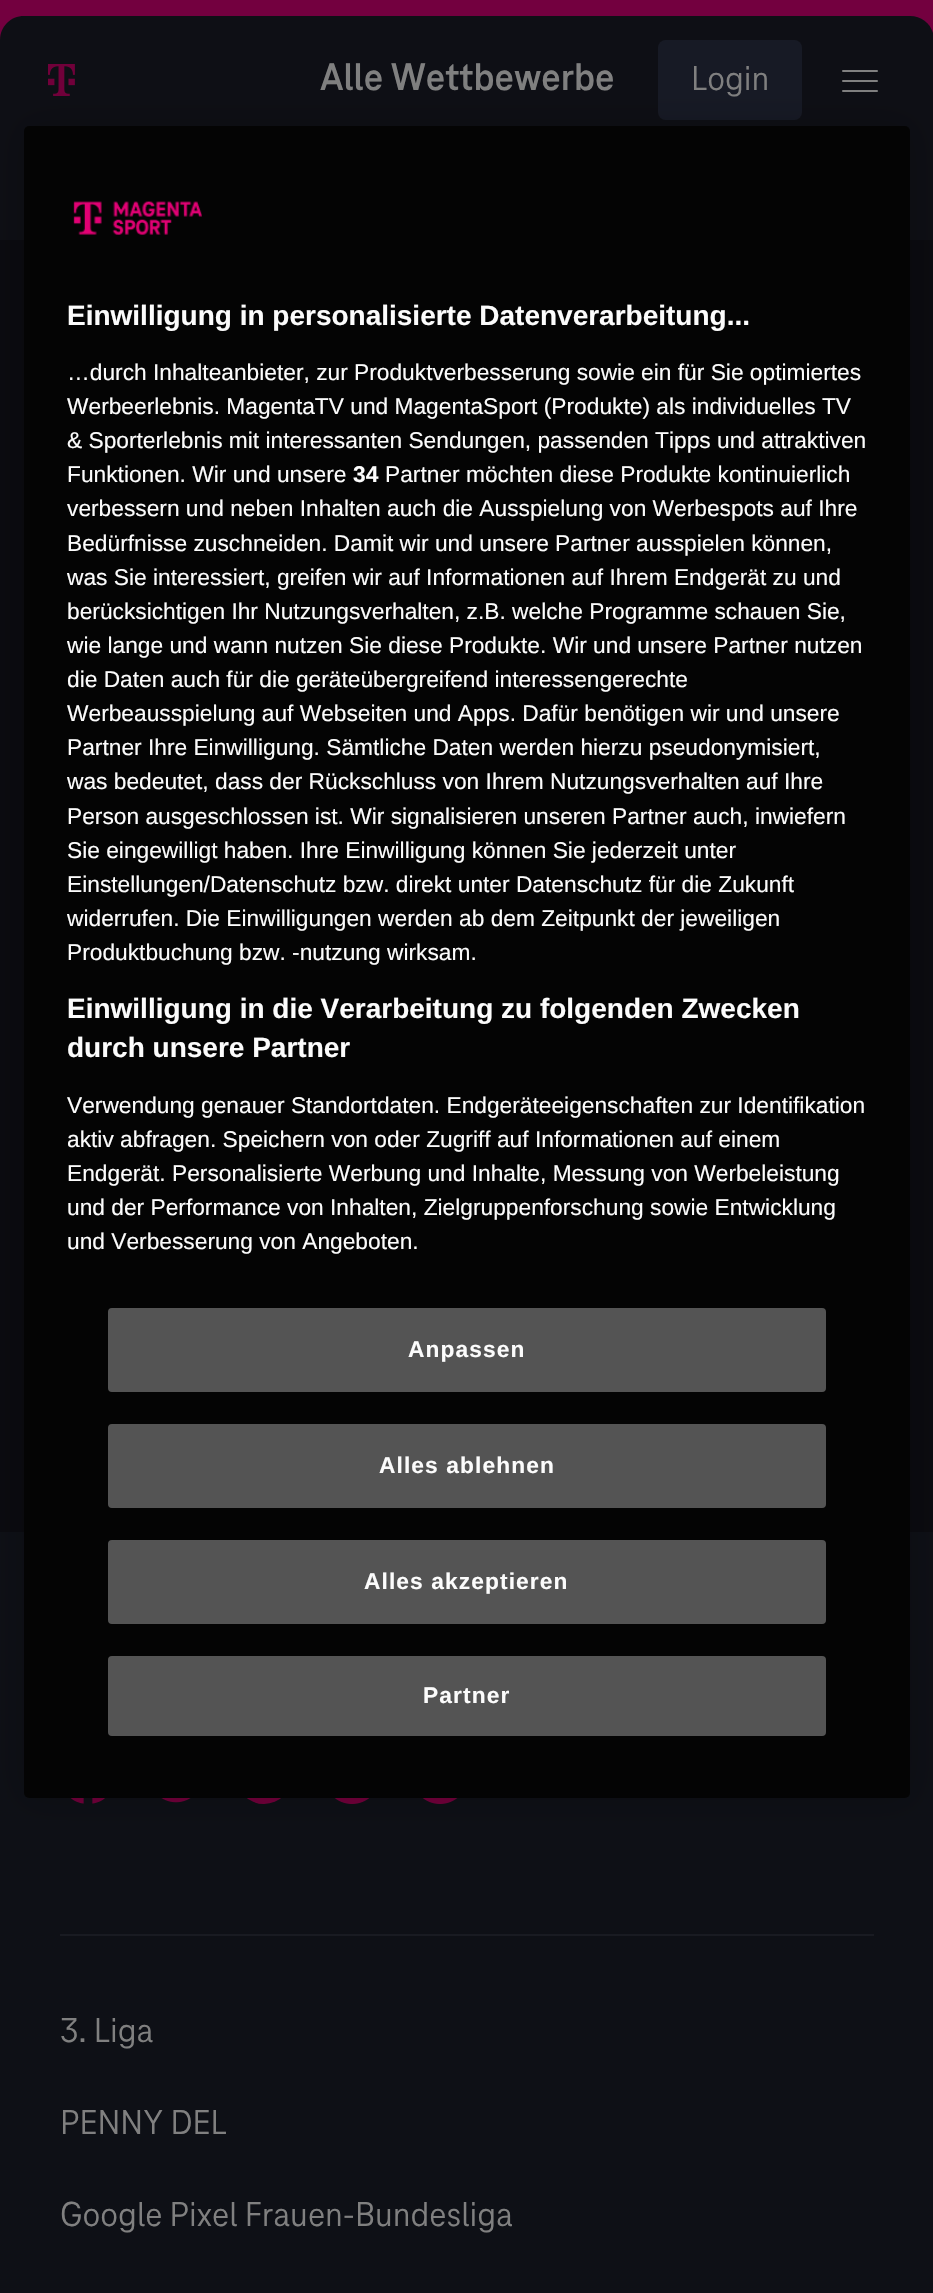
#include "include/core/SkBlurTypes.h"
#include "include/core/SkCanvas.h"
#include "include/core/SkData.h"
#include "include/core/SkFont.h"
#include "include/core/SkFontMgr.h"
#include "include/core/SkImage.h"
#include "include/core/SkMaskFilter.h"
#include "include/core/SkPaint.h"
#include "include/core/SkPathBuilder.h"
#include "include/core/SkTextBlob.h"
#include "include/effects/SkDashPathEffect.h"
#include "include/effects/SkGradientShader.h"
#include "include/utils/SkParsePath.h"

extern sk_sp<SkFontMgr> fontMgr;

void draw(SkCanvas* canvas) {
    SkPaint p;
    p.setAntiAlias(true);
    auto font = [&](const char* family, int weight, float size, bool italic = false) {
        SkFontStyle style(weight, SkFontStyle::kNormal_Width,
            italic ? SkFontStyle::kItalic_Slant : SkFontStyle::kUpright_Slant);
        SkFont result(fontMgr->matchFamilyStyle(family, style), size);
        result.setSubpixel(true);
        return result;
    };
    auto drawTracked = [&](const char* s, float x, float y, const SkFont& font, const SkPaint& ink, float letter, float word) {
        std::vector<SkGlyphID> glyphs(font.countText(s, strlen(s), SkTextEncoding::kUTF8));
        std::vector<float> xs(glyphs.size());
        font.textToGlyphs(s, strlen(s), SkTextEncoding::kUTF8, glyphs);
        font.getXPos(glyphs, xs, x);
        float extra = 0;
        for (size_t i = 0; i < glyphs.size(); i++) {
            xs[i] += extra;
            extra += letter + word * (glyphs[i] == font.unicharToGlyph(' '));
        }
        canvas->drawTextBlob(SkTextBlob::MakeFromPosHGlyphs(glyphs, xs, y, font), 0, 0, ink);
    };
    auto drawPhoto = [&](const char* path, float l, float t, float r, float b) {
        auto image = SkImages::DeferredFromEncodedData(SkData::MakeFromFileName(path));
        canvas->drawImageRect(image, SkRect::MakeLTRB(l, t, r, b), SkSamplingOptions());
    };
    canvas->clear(0xFF0B0B10);
    p.setColor(0xFF73003F);
    canvas->drawRect(SkRect::MakeLTRB(0, 0, 933, 40), p);
    p.setColor(0xFF0E0F15);
    canvas->drawPath(SkPathBuilder().moveTo(24, 16).lineTo(910, 16).cubicTo(923.5f, 16, 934, 26.5f, 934, 40).lineTo(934, 144).lineTo(0, 144).lineTo(0, 40).cubicTo(0, 26.5f, 10.5f, 16, 24, 16).close().detach(), p);
    drawPhoto("media/1.png", 48, 64, 75, 96);
    auto font1 = font("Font", 700, 40);
    p.setColor(0xFF808080);
    canvas->drawString("Alle Wettbewerbe", 320, 90, font1, p);
    p.setColor(0xFF171A25);
    canvas->drawRoundRect(SkRect::MakeLTRB(658, 40, 802, 120), 8, 8, p);
    auto font2 = font("Font", 400, 36);
    p.setColor(0xFF808080);
    canvas->drawString("Login", 691, 90, font2, p);
    canvas->drawRoundRect(SkRect::MakeLTRB(842, 70, 878, 72), 1, 1, p);
    canvas->drawRoundRect(SkRect::MakeLTRB(842, 80, 878, 82), 1, 1, p);
    canvas->drawRoundRect(SkRect::MakeLTRB(842, 90, 878, 92), 1, 1, p);
    {
        const struct { float l, t, r, b; SkColor color; } items[] = {
            {0, 144, 933, 240, 0xFF0E0F15},
            {0, 1532, 933, 2293, 0xFF0E1016},
            {60, 1934, 874, 1936, 0xFF191B22},
        };
        for (auto [l, t, r, b, color] : items) {
            p.setColor(color);
            canvas->drawRect(SkRect::MakeLTRB(l, t, r, b), p);
        }
    }
    drawPhoto("media/2.png", 70, 1798, 105, 1804);
    drawPhoto("media/3.png", 161, 1798, 191, 1803);
    drawPhoto("media/4.png", 247, 1798, 281, 1804);
    drawPhoto("media/5.png", 334, 1798, 370, 1804);
    drawPhoto("media/6.png", 422, 1798, 458, 1804);
    p.setColor(0xFF808080);
    {
        const struct { const char* s; float x, y; } items[] = {
            {"3. Liga", 60, 2042},
            {"PENNY DEL", 60, 2134},
            {"Google Pixel Frauen-Bundesliga", 60, 2226},
        };
        for (auto [s, x, y] : items) {
            canvas->drawString(s, x, y, font2, p);
        }
    }
    p.setColor(0x33000000);
    p.setMaskFilter(SkMaskFilter::MakeBlur(kNormal_SkBlurStyle, 18));
    canvas->drawRoundRect(SkRect::MakeLTRB(24, 126, 910, 1798), 5, 5, p);
    p.setMaskFilter(nullptr);
    p.setColor(0xFF040404);
    canvas->drawRoundRect(SkRect::MakeLTRB(24, 126, 910, 1798), 5, 5, p);
    drawPhoto("media/7.png", 73, 201, 202, 235);
    auto font3 = font("Liberation Sans", 700, 28);
    p.setColor(0xFFFCFCFC);
    canvas->drawString("Einwilligung in personalisierte Datenverarbeitung...", 67, 325, font3, p);
    auto font4 = font("Liberation Sans", 400, 22.75f);
    {
        const struct { const char* s; float x, y; } items[] = {
            {"…durch Inhalteanbieter, zur Produktverbesserung sowie ein für Sie optimiertes", 67, 380},
            {"Werbeerlebnis. MagentaTV und MagentaSport (Produkte) als individuelles TV", 67, 414},
            {"& Sporterlebnis mit interessanten Sendungen, passenden Tipps und attraktiven", 67, 448},
            {"Funktionen. Wir und unsere", 67, 482},
        };
        for (auto [s, x, y] : items) {
            canvas->drawString(s, x, y, font4, p);
        }
    }
    auto font5 = font("Liberation Sans", 700, 22.75f);
    canvas->drawString("34", 353, 482, font5, p);
    {
        const struct { const char* s; float x, y; } items[] = {
            {"Partner möchten diese Produkte kontinuierlich", 385, 482},
            {"verbessern und neben Inhalten auch die Ausspielung von Werbespots auf Ihre", 67, 516},
            {"Bedürfnisse zuschneiden. Damit wir und unsere Partner ausspielen können,", 67, 551},
            {"was Sie interessiert, greifen wir auf Informationen auf Ihrem Endgerät zu und", 67, 585},
            {"berücksichtigen Ihr Nutzungsverhalten, z.B. welche Programme schauen Sie,", 67, 619},
            {"wie lange und wann nutzen Sie diese Produkte. Wir und unsere Partner nutzen", 67, 653},
            {"die Daten auch für die geräteübergreifend interessengerechte", 67, 687},
            {"Werbeausspielung auf Webseiten und Apps. Dafür benötigen wir und unsere", 67, 721},
            {"Partner Ihre Einwilligung. Sämtliche Daten werden hierzu pseudonymisiert,", 67, 755},
            {"was bedeutet, dass der Rückschluss von Ihrem Nutzungsverhalten auf Ihre", 67, 789},
            {"Person ausgeschlossen ist. Wir signalisieren unseren Partner auch, inwiefern", 67, 824},
            {"Sie eingewilligt haben. Ihre Einwilligung können Sie jederzeit unter", 67, 858},
            {"Einstellungen/Datenschutz bzw. direkt unter Datenschutz für die Zukunft", 67, 892},
            {"widerrufen. Die Einwilligungen werden ab dem Zeitpunkt der jeweiligen", 67, 926},
            {"Produktbuchung bzw. -nutzung wirksam.", 67, 960},
        };
        for (auto [s, x, y] : items) {
            canvas->drawString(s, x, y, font4, p);
        }
    }
    canvas->drawString("Einwilligung in die Verarbeitung zu folgenden Zwecken", 67, 1018, font3, p);
    canvas->drawString("durch unsere Partner", 67, 1057, font3, p);
    {
        const struct { const char* s; float x, y; } items[] = {
            {"Verwendung genauer Standortdaten. Endgeräteeigenschaften zur Identifikation", 67, 1113},
            {"aktiv abfragen. Speichern von oder Zugriff auf Informationen auf einem", 67, 1147},
            {"Endgerät. Personalisierte Werbung und Inhalte, Messung von Werbeleistung", 67, 1181},
            {"und der Performance von Inhalten, Zielgruppenforschung sowie Entwicklung", 67, 1215},
            {"und Verbesserung von Angeboten.", 67, 1249},
        };
        for (auto [s, x, y] : items) {
            canvas->drawString(s, x, y, font4, p);
        }
    }
    p.setColor(0xFF545454);
    canvas->drawRoundRect(SkRect::MakeLTRB(109, 1309, 825, 1391), 3, 3, p);
    p.setStyle(SkPaint::kStroke_Style);
    p.setStrokeWidth(2);
    canvas->drawRoundRect(SkRect::MakeLTRB(109, 1309, 825, 1391), 3, 3, p);
    p.setStyle(SkPaint::kFill_Style);
    p.setColor(0xFFFCFCFC);
    drawTracked("Anpassen", 408, 1357, font5, p, 1.1f, 0);
    p.setColor(0xFF545454);
    canvas->drawRoundRect(SkRect::MakeLTRB(109, 1425, 825, 1507), 3, 3, p);
    p.setStyle(SkPaint::kStroke_Style);
    canvas->drawRoundRect(SkRect::MakeLTRB(109, 1425, 825, 1507), 3, 3, p);
    p.setStyle(SkPaint::kFill_Style);
    p.setColor(0xFFFCFCFC);
    drawTracked("Alles ablehnen", 379, 1473, font5, p, 1.1f, 0);
    p.setColor(0xFF545454);
    canvas->drawRoundRect(SkRect::MakeLTRB(109, 1541, 825, 1623), 3, 3, p);
    p.setStyle(SkPaint::kStroke_Style);
    canvas->drawRoundRect(SkRect::MakeLTRB(109, 1541, 825, 1623), 3, 3, p);
    p.setStyle(SkPaint::kFill_Style);
    p.setColor(0xFFFCFCFC);
    drawTracked("Alles akzeptieren", 364, 1589, font5, p, 1.1f, 0);
    p.setColor(0xFF545454);
    canvas->drawRoundRect(SkRect::MakeLTRB(108, 1656, 826, 1736), 4, 4, p);
    p.setColor(0xFFFCFCFC);
    drawTracked("Partner", 423, 1703, font5, p, 1.1f, 0);
}
